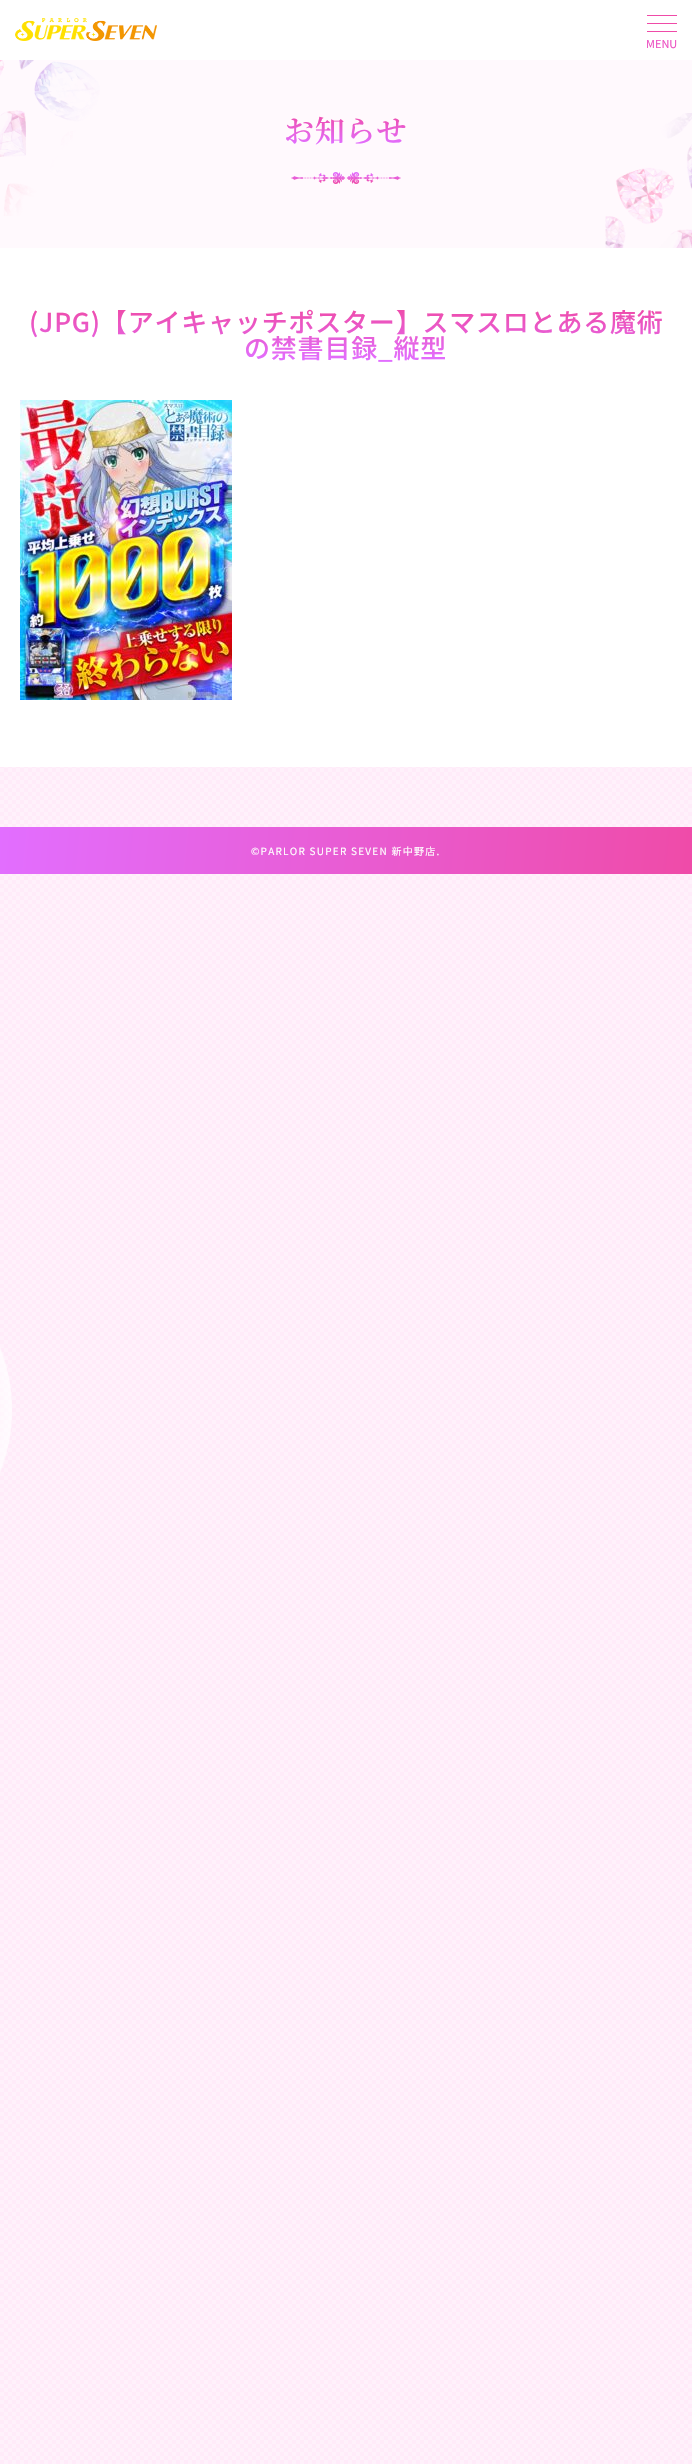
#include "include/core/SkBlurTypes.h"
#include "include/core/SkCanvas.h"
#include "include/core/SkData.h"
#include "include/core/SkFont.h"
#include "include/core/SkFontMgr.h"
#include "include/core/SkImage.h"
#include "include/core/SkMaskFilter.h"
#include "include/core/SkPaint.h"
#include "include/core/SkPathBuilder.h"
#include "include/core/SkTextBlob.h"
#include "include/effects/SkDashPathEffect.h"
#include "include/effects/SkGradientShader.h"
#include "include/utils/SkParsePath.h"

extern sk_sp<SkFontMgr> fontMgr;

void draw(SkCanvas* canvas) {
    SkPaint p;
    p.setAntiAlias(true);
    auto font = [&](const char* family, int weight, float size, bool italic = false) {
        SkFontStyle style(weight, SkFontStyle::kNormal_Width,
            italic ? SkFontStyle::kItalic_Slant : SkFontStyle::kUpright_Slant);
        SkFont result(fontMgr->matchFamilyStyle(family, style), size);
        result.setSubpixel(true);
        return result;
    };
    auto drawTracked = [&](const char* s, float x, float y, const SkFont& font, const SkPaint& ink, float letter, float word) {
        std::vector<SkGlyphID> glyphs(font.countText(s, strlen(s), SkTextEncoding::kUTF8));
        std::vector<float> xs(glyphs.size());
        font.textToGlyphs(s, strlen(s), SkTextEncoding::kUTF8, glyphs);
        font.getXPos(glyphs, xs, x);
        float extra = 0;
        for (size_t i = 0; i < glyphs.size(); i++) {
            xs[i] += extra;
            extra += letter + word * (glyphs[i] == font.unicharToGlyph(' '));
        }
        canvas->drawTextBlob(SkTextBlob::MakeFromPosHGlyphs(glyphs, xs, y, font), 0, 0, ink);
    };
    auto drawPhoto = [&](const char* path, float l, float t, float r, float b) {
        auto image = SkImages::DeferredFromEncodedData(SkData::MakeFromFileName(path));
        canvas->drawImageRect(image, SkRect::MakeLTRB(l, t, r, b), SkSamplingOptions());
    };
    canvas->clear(0xFFFFFFFF);
    drawPhoto("media/1.png", 0, 767, 692, 2464);
    drawPhoto("media/2.png", 15, 18, 157, 41);
    {
        const struct { float l, t, r, b; SkColor color; } items[] = {
            {647, 15, 677, 16, 0xFFEF4BA8},
            {647, 23, 677, 24, 0xFFEF4BA8},
            {647, 31, 677, 32, 0xFFEF4BA8},
        };
        for (auto [l, t, r, b, color] : items) {
            p.setColor(color);
            canvas->drawRect(SkRect::MakeLTRB(l, t, r, b), p);
        }
    }
    auto font1 = font("Noto Sans JP", 400, 11);
    p.setColor(0xFFEC51C2);
    canvas->drawString("MENU", 646, 48, font1, p);
    p.setColor(0xFFFFF9FD);
    canvas->drawRect(SkRect::MakeLTRB(0, 60, 692, 248), p);
    drawPhoto("media/3.png", 0, 60, 692, 248);
    drawPhoto("media/4.png", 291, 172, 401, 184);
    auto font2 = font("Noto Serif JP", 600, 30);
    {
        const SkColor colors[] = {0xFFEF4BA8, 0xFFE26EFF};
        const float stops[] = {0, 1};
        const SkPoint ends[] = {{346, 114}, {346, 144}};
        p.setShader(SkGradientShader::MakeLinear(ends, colors, stops, 2, SkTileMode::kClamp));
        p.setAlpha(255);
    }
    drawTracked("お知らせ", 284, 142, font2, p, 0.8f, 0);
    auto font3 = font("Noto Sans JP", 500, 26);
    {
        const SkColor colors[] = {0xFFEF4BA8, 0xFFE26EFF};
        const float stops[] = {0, 1};
        const SkPoint ends[] = {{346, 308}, {346, 360}};
        p.setShader(SkGradientShader::MakeLinear(ends, colors, stops, 2, SkTileMode::kClamp));
        p.setAlpha(255);
    }
    drawTracked("(JPG)【アイキャッチポスター】スマスロとある魔術", 29, 332, font3, p, 0.8f, 0);
    drawTracked("の禁書目録_縦型", 244, 358, font3, p, 0.8f, 0);
    drawPhoto("media/5.png", 20, 400, 232, 700);
    {
        const SkColor colors[] = {0xFFE26EFF, 0xFFEF4BA8};
        const float stops[] = {0, 1};
        const SkPoint ends[] = {{1.3f, 814}, {691, 887}};
        p.setShader(SkGradientShader::MakeLinear(ends, colors, stops, 2, SkTileMode::kClamp));
        p.setAlpha(255);
    }
    canvas->drawRect(SkRect::MakeLTRB(0, 827, 692, 874), p);
    auto font4 = font("Noto Sans JP", 400, 10);
    p.setShader(nullptr);
    p.setColor(0xFFFFFFFF);
    drawTracked("©PARLOR SUPER SEVEN 新中野店.", 251, 855, font4, p, 1.25f, 0);
}
